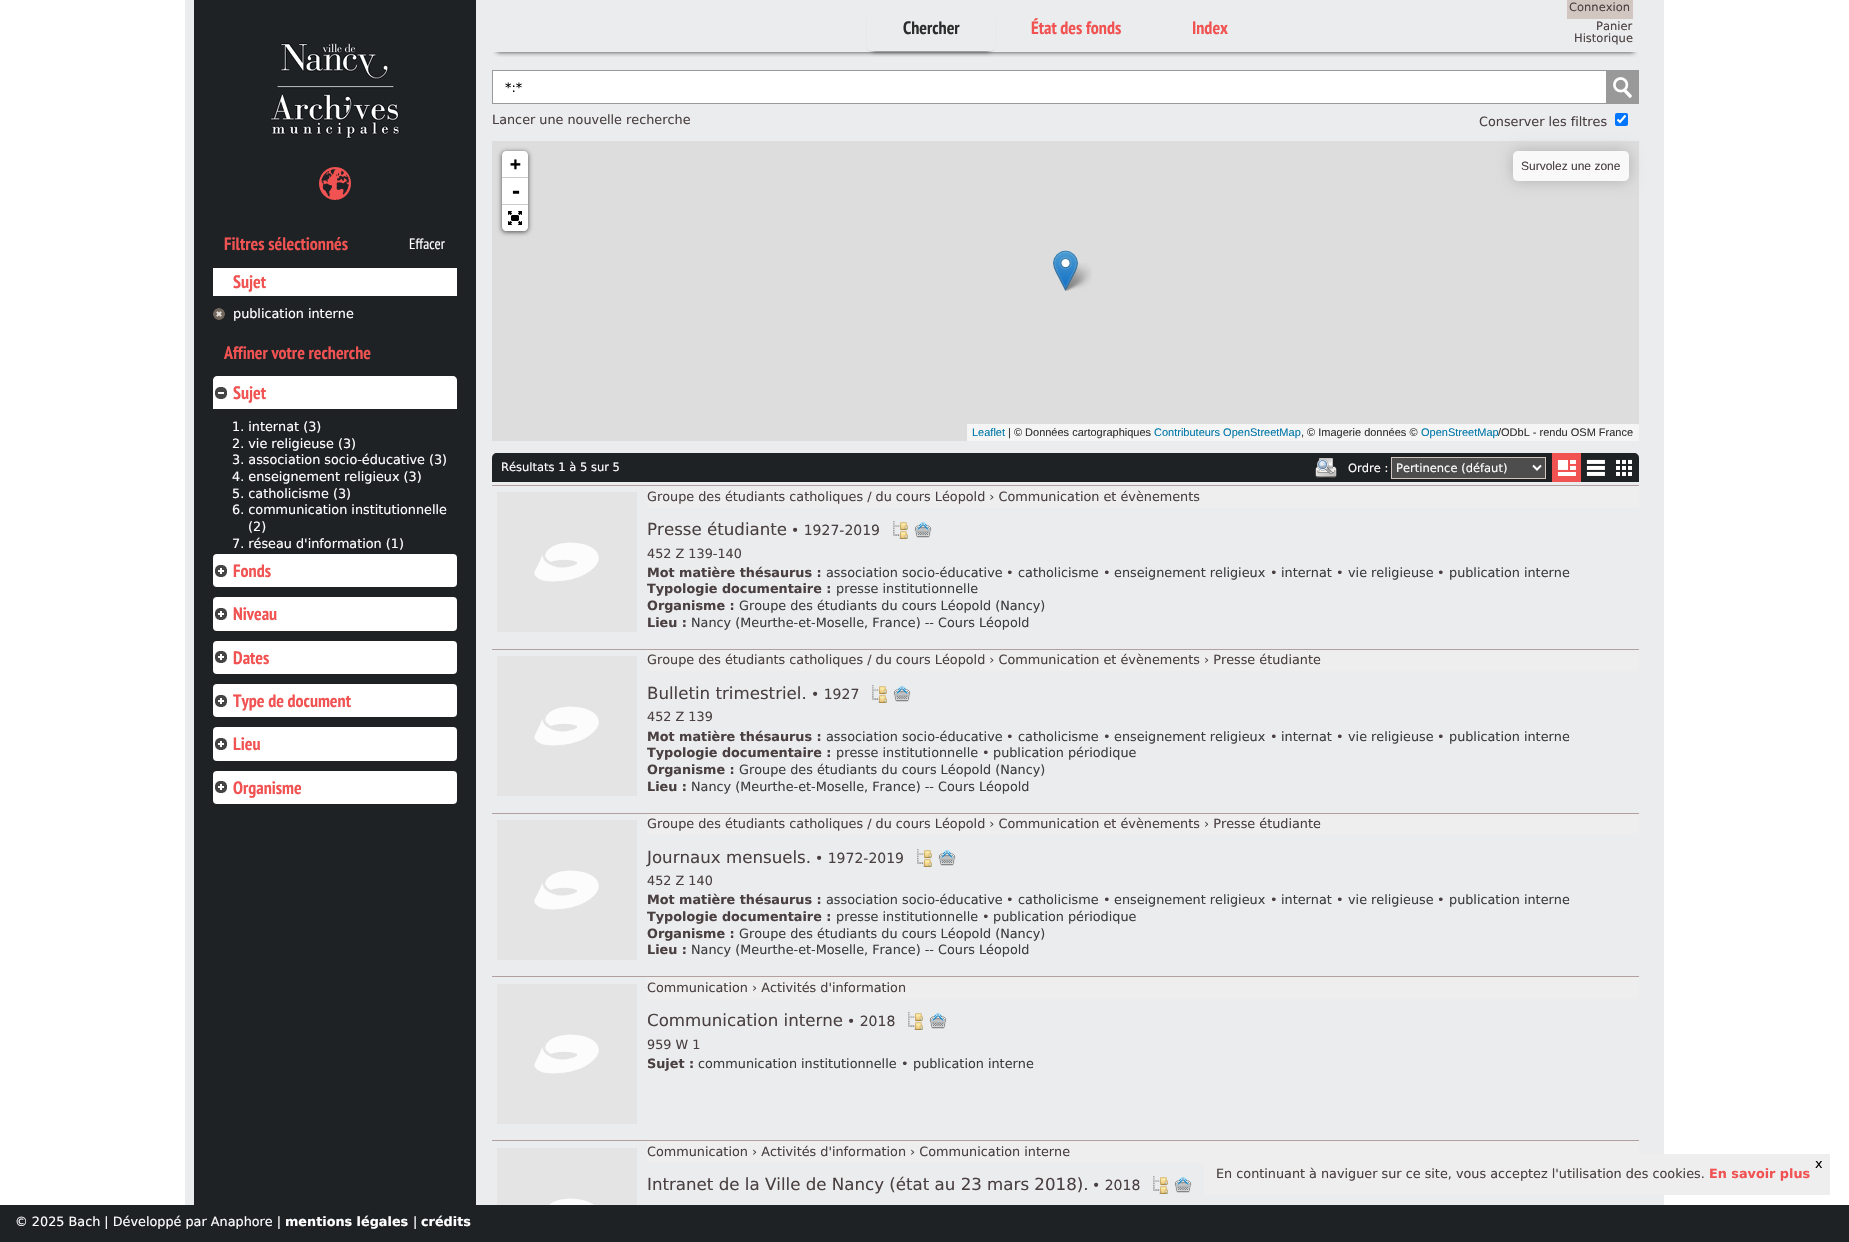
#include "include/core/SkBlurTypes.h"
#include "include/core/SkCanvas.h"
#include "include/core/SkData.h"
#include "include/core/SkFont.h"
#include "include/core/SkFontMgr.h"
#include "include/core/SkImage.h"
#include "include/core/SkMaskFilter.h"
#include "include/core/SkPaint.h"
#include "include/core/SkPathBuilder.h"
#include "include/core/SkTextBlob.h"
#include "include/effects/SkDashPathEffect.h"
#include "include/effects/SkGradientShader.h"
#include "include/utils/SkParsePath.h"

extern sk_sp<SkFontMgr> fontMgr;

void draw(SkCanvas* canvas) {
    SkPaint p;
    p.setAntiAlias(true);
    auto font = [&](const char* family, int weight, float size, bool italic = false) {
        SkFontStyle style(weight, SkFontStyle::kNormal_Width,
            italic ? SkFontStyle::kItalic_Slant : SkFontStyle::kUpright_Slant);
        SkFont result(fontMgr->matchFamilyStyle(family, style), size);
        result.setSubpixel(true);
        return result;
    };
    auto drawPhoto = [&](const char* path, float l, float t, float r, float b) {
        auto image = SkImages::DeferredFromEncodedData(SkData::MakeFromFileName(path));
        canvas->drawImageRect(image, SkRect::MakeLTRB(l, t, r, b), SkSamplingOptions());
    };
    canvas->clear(0xFFFFFFFF);
    p.setColor(0xFFEBECED);
    canvas->drawRect(SkRect::MakeLTRB(185, 0, 1664, 1205), p);
    canvas->save();
    canvas->clipRect(SkRect::MakeLTRB(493, 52, 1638, 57));
    p.setColor(0xFF333333);
    p.setMaskFilter(SkMaskFilter::MakeBlur(kNormal_SkBlurStyle, 2.5f));
    canvas->drawRect(SkRect::MakeLTRB(497, 10, 1634, 52), p);
    p.setMaskFilter(nullptr);
    canvas->restore();
    p.setColor(0xFFEEEEEE);
    canvas->drawRect(SkRect::MakeLTRB(492, 51, 1639, 52), p);
    canvas->save();
    canvas->clipPath(SkPathBuilder(SkPathFillType::kEvenOdd).moveTo(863, 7).lineTo(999, 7).lineTo(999, 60).lineTo(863, 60).close().moveTo(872, 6).lineTo(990, 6).cubicTo(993, 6, 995, 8, 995, 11).lineTo(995, 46).cubicTo(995, 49, 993, 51, 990, 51).lineTo(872, 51).cubicTo(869, 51, 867, 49, 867, 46).lineTo(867, 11).cubicTo(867, 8, 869, 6, 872, 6).close().detach(), true);
    p.setColor(0xFF333333);
    p.setMaskFilter(SkMaskFilter::MakeBlur(kNormal_SkBlurStyle, 2.5f));
    canvas->drawRect(SkRect::MakeLTRB(872, 16, 990, 51), p);
    p.setMaskFilter(nullptr);
    canvas->restore();
    auto font1 = font("PT Sans Narrow", 700, 18);
    p.setColor(0xFF2D2D2D);
    canvas->drawString("Chercher", 903, 34, font1, p);
    p.setColor(0xFFF15252);
    canvas->drawString("État des fonds", 1031, 34, font1, p);
    canvas->drawString("Index", 1192, 34, font1, p);
    p.setColor(0xFFD1C6C0);
    canvas->drawRect(SkRect::MakeLTRB(1567, 0, 1633, 19), p);
    auto font2 = font("DejaVu Sans", 400, 11.5f);
    p.setColor(0xFF4A4041);
    {
        const struct { const char* s; float x, y; } items[] = {
            {"Connexion", 1569, 11},
            {"Panier", 1596, 30},
            {"Historique", 1574, 42},
        };
        for (auto [s, x, y] : items) {
            canvas->drawString(s, x, y, font2, p);
        }
    }
    p.setStyle(SkPaint::kStroke_Style);
    p.setStrokeWidth(1);
    p.setColor(0xFF999999);
    canvas->drawRect(SkRect::MakeLTRB(492.5f, 70.5f, 1638.5f, 103.5f), p);
    p.setStyle(SkPaint::kFill_Style);
    p.setColor(0xFFFFFFFF);
    canvas->drawRect(SkRect::MakeLTRB(493, 71, 1606, 103), p);
    auto font3 = font("DejaVu Sans", 400, 12.8f);
    p.setColor(0xFF000000);
    canvas->drawString("*:*", 505, 92, font3, p);
    p.setColor(0xFF999999);
    canvas->drawRect(SkRect::MakeLTRB(1606, 71, 1638, 103), p);
    drawPhoto("media/1.png", 1613, 77, 1632, 98);
    p.setColor(0xFF4A4041);
    canvas->drawString("Conserver les filtres", 1479, 126, font3, p);
    p.setColor(0xFF0075FF);
    canvas->drawRoundRect(SkRect::MakeLTRB(1615, 113, 1628, 126), 2, 2, p);
    p.setStyle(SkPaint::kStroke_Style);
    p.setStrokeWidth(2.1f);
    p.setColor(0xFFFFFFFF);
    canvas->drawPath(SkPathBuilder().moveTo(1617.5f, 119.5f).lineTo(1620, 122).lineTo(1625.5f, 115.5f).detach(), p);
    p.setStyle(SkPaint::kFill_Style);
    p.setColor(0xFF4A4041);
    canvas->drawString("Lancer une nouvelle recherche", 492, 124, font3, p);
    p.setColor(0xFFDDDDDD);
    canvas->drawRect(SkRect::MakeLTRB(492, 141, 1639, 441), p);
    p.setColor(0xA6000000);
    p.setMaskFilter(SkMaskFilter::MakeBlur(kNormal_SkBlurStyle, 2.5f));
    canvas->drawRoundRect(SkRect::MakeLTRB(502, 152, 528, 232), 4, 4, p);
    p.setMaskFilter(nullptr);
    p.setColor(0xFFFFFFFF);
    canvas->drawPath(SkPathBuilder().moveTo(506, 151).lineTo(524, 151).cubicTo(526, 151, 528, 153, 528, 155).lineTo(528, 178).lineTo(502, 178).lineTo(502, 155).cubicTo(502, 153, 504, 151, 506, 151).close().detach(), p);
    p.setColor(0xFFCCCCCC);
    canvas->drawRect(SkRect::MakeLTRB(502, 177, 528, 178), p);
    auto font4 = font("DejaVu Sans Mono", 700, 18);
    p.setColor(0xFF000000);
    canvas->drawString("+", 510, 170, font4, p);
    p.setColor(0xFFFFFFFF);
    canvas->drawRect(SkRect::MakeLTRB(502, 178, 528, 204), p);
    p.setColor(0xFFCCCCCC);
    canvas->drawRect(SkRect::MakeLTRB(502, 204, 528, 205), p);
    auto font5 = font("DejaVu Sans Mono", 700, 20);
    p.setColor(0xFF000000);
    canvas->drawString("-", 510, 198, font5, p);
    p.setColor(0xFFFFFFFF);
    canvas->drawPath(SkPathBuilder().moveTo(502, 205).lineTo(528, 205).lineTo(528, 227).cubicTo(528, 229, 526, 231, 524, 231).lineTo(506, 231).cubicTo(504, 231, 502, 229, 502, 227).close().detach(), p);
    drawPhoto("media/2.png", 508, 211, 522, 225);
    canvas->save();
    canvas->clipPath(SkPathBuilder(SkPathFillType::kEvenOdd).moveTo(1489, 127).lineTo(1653, 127).lineTo(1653, 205).lineTo(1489, 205).close().moveTo(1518, 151).lineTo(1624, 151).cubicTo(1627, 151, 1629, 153, 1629, 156).lineTo(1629, 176).cubicTo(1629, 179, 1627, 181, 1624, 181).lineTo(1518, 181).cubicTo(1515, 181, 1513, 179, 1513, 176).lineTo(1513, 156).cubicTo(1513, 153, 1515, 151, 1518, 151).close().detach(), true);
    p.setColor(0x33000000);
    p.setMaskFilter(SkMaskFilter::MakeBlur(kNormal_SkBlurStyle, 7.5f));
    canvas->drawRoundRect(SkRect::MakeLTRB(1513, 151, 1629, 181), 5, 5, p);
    p.setMaskFilter(nullptr);
    canvas->restore();
    p.setColor(0xCCFFFFFF);
    canvas->drawRoundRect(SkRect::MakeLTRB(1513, 151, 1629, 181), 5, 5, p);
    auto font6 = font("Liberation Sans", 400, 12);
    p.setColor(0xFF4A4041);
    canvas->drawString("Survolez une zone", 1521, 170, font6, p);
    p.setColor(0xFFF5F5F5);
    canvas->drawRect(SkRect::MakeLTRB(967, 424, 1639, 441), p);
    auto font7 = font("Liberation Sans", 400, 11);
    p.setColor(0xFF0078A8);
    canvas->drawString("Leaflet", 972, 436, font7, p);
    p.setColor(0xFF333333);
    canvas->drawString("| © Données cartographiques", 1008, 436, font7, p);
    p.setColor(0xFF0078A8);
    canvas->drawString("Contributeurs OpenStreetMap", 1154, 436, font7, p);
    p.setColor(0xFF333333);
    canvas->drawString(", © Imagerie données ©", 1301, 436, font7, p);
    p.setColor(0xFF0078A8);
    canvas->drawString("OpenStreetMap", 1421, 436, font7, p);
    p.setColor(0xFF333333);
    canvas->drawString("/ODbL - rendu OSM France", 1498, 436, font7, p);
    drawPhoto("media/4.png", 1063, 263, 1092, 291);
    drawPhoto("media/3.png", 1053, 250, 1078, 291);
    p.setColor(0xFF1F2225);
    canvas->drawPath(SkPathBuilder().moveTo(497, 453).lineTo(1634, 453).cubicTo(1637, 453, 1639, 455, 1639, 458).lineTo(1639, 482).lineTo(492, 482).lineTo(492, 458).cubicTo(492, 455, 494, 453, 497, 453).close().detach(), p);
    p.setColor(0xFFFFFFFF);
    canvas->drawString("Résultats 1 à 5 sur 5", 501, 471, font2, p);
    drawPhoto("media/5.png", 1315, 458, 1337, 479);
    canvas->drawString("Ordre :", 1348, 472, font2, p);
    p.setColor(0xFF4D4D4D);
    canvas->drawRect(SkRect::MakeLTRB(1391.5f, 457.5f, 1545.5f, 478.5f), p);
    p.setStyle(SkPaint::kStroke_Style);
    p.setStrokeWidth(1);
    p.setColor(0xFFD1C6C0);
    canvas->drawRect(SkRect::MakeLTRB(1391.5f, 457.5f, 1545.5f, 478.5f), p);
    p.setStrokeWidth(2);
    p.setColor(0xFFFFFFFF);
    canvas->drawPath(SkPathBuilder().moveTo(1533, 465.5f).lineTo(1537, 469.5f).lineTo(1541, 465.5f).detach(), p);
    p.setStyle(SkPaint::kFill_Style);
    canvas->drawString("Pertinence (défaut)", 1396, 472, font2, p);
    p.setColor(0xFFF15252);
    canvas->drawRect(SkRect::MakeLTRB(1552, 453, 1581, 482), p);
    drawPhoto("media/6.png", 1557, 460, 1576, 476);
    drawPhoto("media/7.png", 1586, 459, 1605, 476);
    drawPhoto("media/8.png", 1616, 459, 1632, 476);
    p.setColor(0xFFB2A0A0);
    canvas->drawRect(SkRect::MakeLTRB(492, 485, 1639, 486), p);
    drawPhoto("media/9.png", 497, 492, 637, 632);
    p.setColor(0xFFEEEEEE);
    canvas->drawRect(SkRect::MakeLTRB(647, 486, 1639, 508), p);
    p.setColor(0xFF4A4041);
    canvas->drawString("Groupe des étudiants catholiques / du cours Léopold › Communication et évènements", 647, 501, font3, p);
    auto font8 = font("DejaVu Sans", 400, 16.65f);
    canvas->drawString("Presse étudiante", 647, 535, font8, p);
    auto font9 = font("DejaVu Sans", 400, 14);
    canvas->drawString("• 1927-2019", 791, 535, font9, p);
    drawPhoto("media/10.png", 893, 521, 908, 539);
    drawPhoto("media/11.png", 914, 522, 932, 538);
    canvas->drawString("452 Z 139-140", 647, 558, font3, p);
    auto font10 = font("DejaVu Sans", 700, 12.8f);
    canvas->drawString("Mot matière thésaurus :", 647, 577, font10, p);
    p.setColor(0xFF3E3E3E);
    canvas->drawString("association socio-éducative", 826, 577, font3, p);
    p.setColor(0xFF4A4041);
    canvas->drawString("•", 1006, 577, font3, p);
    p.setColor(0xFF3E3E3E);
    canvas->drawString("catholicisme", 1018, 577, font3, p);
    p.setColor(0xFF4A4041);
    canvas->drawString("•", 1103, 577, font3, p);
    p.setColor(0xFF3E3E3E);
    canvas->drawString("enseignement religieux", 1114, 577, font3, p);
    p.setColor(0xFF4A4041);
    canvas->drawString("•", 1270, 577, font3, p);
    p.setColor(0xFF3E3E3E);
    canvas->drawString("internat", 1281, 577, font3, p);
    p.setColor(0xFF4A4041);
    canvas->drawString("•", 1336, 577, font3, p);
    p.setColor(0xFF3E3E3E);
    canvas->drawString("vie religieuse", 1348, 577, font3, p);
    p.setColor(0xFF4A4041);
    canvas->drawString("•", 1437, 577, font3, p);
    p.setColor(0xFF3E3E3E);
    canvas->drawString("publication interne", 1449, 577, font3, p);
    p.setColor(0xFF4A4041);
    canvas->drawString("Typologie documentaire :", 647, 593, font10, p);
    p.setColor(0xFF3E3E3E);
    canvas->drawString("presse institutionnelle", 836, 593, font3, p);
    p.setColor(0xFF4A4041);
    canvas->drawString("Organisme :", 647, 610, font10, p);
    p.setColor(0xFF3E3E3E);
    canvas->drawString("Groupe des étudiants du cours Léopold (Nancy)", 739, 610, font3, p);
    p.setColor(0xFF4A4041);
    canvas->drawString("Lieu :", 647, 627, font10, p);
    p.setColor(0xFF3E3E3E);
    canvas->drawString("Nancy (Meurthe-et-Moselle, France) -- Cours Léopold", 691, 627, font3, p);
    p.setColor(0xFFB2A0A0);
    canvas->drawRect(SkRect::MakeLTRB(492, 649, 1639, 650), p);
    drawPhoto("media/9.png", 497, 656, 637, 796);
    p.setColor(0xFFEEEEEE);
    canvas->drawRect(SkRect::MakeLTRB(647, 650, 1639, 671), p);
    p.setColor(0xFF4A4041);
    canvas->drawString("Groupe des étudiants catholiques / du cours Léopold › Communication et évènements › Presse étudiante", 647, 664, font3, p);
    canvas->drawString("Bulletin trimestriel.", 647, 699, font8, p);
    canvas->drawString("• 1927", 811, 699, font9, p);
    drawPhoto("media/12.png", 872, 685, 887, 703);
    drawPhoto("media/13.png", 893, 686, 911, 702);
    canvas->drawString("452 Z 139", 647, 721, font3, p);
    canvas->drawString("Mot matière thésaurus :", 647, 741, font10, p);
    p.setColor(0xFF3E3E3E);
    canvas->drawString("association socio-éducative", 826, 741, font3, p);
    p.setColor(0xFF4A4041);
    canvas->drawString("•", 1006, 741, font3, p);
    p.setColor(0xFF3E3E3E);
    canvas->drawString("catholicisme", 1018, 741, font3, p);
    p.setColor(0xFF4A4041);
    canvas->drawString("•", 1103, 741, font3, p);
    p.setColor(0xFF3E3E3E);
    canvas->drawString("enseignement religieux", 1114, 741, font3, p);
    p.setColor(0xFF4A4041);
    canvas->drawString("•", 1270, 741, font3, p);
    p.setColor(0xFF3E3E3E);
    canvas->drawString("internat", 1281, 741, font3, p);
    p.setColor(0xFF4A4041);
    canvas->drawString("•", 1336, 741, font3, p);
    p.setColor(0xFF3E3E3E);
    canvas->drawString("vie religieuse", 1348, 741, font3, p);
    p.setColor(0xFF4A4041);
    canvas->drawString("•", 1437, 741, font3, p);
    p.setColor(0xFF3E3E3E);
    canvas->drawString("publication interne", 1449, 741, font3, p);
    p.setColor(0xFF4A4041);
    canvas->drawString("Typologie documentaire :", 647, 757, font10, p);
    p.setColor(0xFF3E3E3E);
    canvas->drawString("presse institutionnelle", 836, 757, font3, p);
    p.setColor(0xFF4A4041);
    canvas->drawString("•", 982, 757, font3, p);
    p.setColor(0xFF3E3E3E);
    canvas->drawString("publication périodique", 993, 757, font3, p);
    p.setColor(0xFF4A4041);
    canvas->drawString("Organisme :", 647, 774, font10, p);
    p.setColor(0xFF3E3E3E);
    canvas->drawString("Groupe des étudiants du cours Léopold (Nancy)", 739, 774, font3, p);
    p.setColor(0xFF4A4041);
    canvas->drawString("Lieu :", 647, 791, font10, p);
    p.setColor(0xFF3E3E3E);
    canvas->drawString("Nancy (Meurthe-et-Moselle, France) -- Cours Léopold", 691, 791, font3, p);
    p.setColor(0xFFB2A0A0);
    canvas->drawRect(SkRect::MakeLTRB(492, 813, 1639, 814), p);
    drawPhoto("media/9.png", 497, 820, 637, 960);
    p.setColor(0xFFEEEEEE);
    canvas->drawRect(SkRect::MakeLTRB(647, 814, 1639, 835), p);
    p.setColor(0xFF4A4041);
    canvas->drawString("Groupe des étudiants catholiques / du cours Léopold › Communication et évènements › Presse étudiante", 647, 828, font3, p);
    canvas->drawString("Journaux mensuels.", 647, 863, font8, p);
    canvas->drawString("• 1972-2019", 815, 863, font9, p);
    drawPhoto("media/12.png", 917, 849, 932, 867);
    drawPhoto("media/11.png", 938, 850, 956, 866);
    canvas->drawString("452 Z 140", 647, 885, font3, p);
    canvas->drawString("Mot matière thésaurus :", 647, 904, font10, p);
    p.setColor(0xFF3E3E3E);
    canvas->drawString("association socio-éducative", 826, 904, font3, p);
    p.setColor(0xFF4A4041);
    canvas->drawString("•", 1006, 904, font3, p);
    p.setColor(0xFF3E3E3E);
    canvas->drawString("catholicisme", 1018, 904, font3, p);
    p.setColor(0xFF4A4041);
    canvas->drawString("•", 1103, 904, font3, p);
    p.setColor(0xFF3E3E3E);
    canvas->drawString("enseignement religieux", 1114, 904, font3, p);
    p.setColor(0xFF4A4041);
    canvas->drawString("•", 1270, 904, font3, p);
    p.setColor(0xFF3E3E3E);
    canvas->drawString("internat", 1281, 904, font3, p);
    p.setColor(0xFF4A4041);
    canvas->drawString("•", 1336, 904, font3, p);
    p.setColor(0xFF3E3E3E);
    canvas->drawString("vie religieuse", 1348, 904, font3, p);
    p.setColor(0xFF4A4041);
    canvas->drawString("•", 1437, 904, font3, p);
    p.setColor(0xFF3E3E3E);
    canvas->drawString("publication interne", 1449, 904, font3, p);
    p.setColor(0xFF4A4041);
    canvas->drawString("Typologie documentaire :", 647, 921, font10, p);
    p.setColor(0xFF3E3E3E);
    canvas->drawString("presse institutionnelle", 836, 921, font3, p);
    p.setColor(0xFF4A4041);
    canvas->drawString("•", 982, 921, font3, p);
    p.setColor(0xFF3E3E3E);
    canvas->drawString("publication périodique", 993, 921, font3, p);
    p.setColor(0xFF4A4041);
    canvas->drawString("Organisme :", 647, 938, font10, p);
    p.setColor(0xFF3E3E3E);
    canvas->drawString("Groupe des étudiants du cours Léopold (Nancy)", 739, 938, font3, p);
    p.setColor(0xFF4A4041);
    canvas->drawString("Lieu :", 647, 954, font10, p);
    p.setColor(0xFF3E3E3E);
    canvas->drawString("Nancy (Meurthe-et-Moselle, France) -- Cours Léopold", 691, 954, font3, p);
    p.setColor(0xFFB2A0A0);
    canvas->drawRect(SkRect::MakeLTRB(492, 976, 1639, 977), p);
    drawPhoto("media/9.png", 497, 984, 637, 1124);
    p.setColor(0xFFEEEEEE);
    canvas->drawRect(SkRect::MakeLTRB(647, 977, 1639, 999), p);
    p.setColor(0xFF4A4041);
    canvas->drawString("Communication › Activités d'information", 647, 992, font3, p);
    canvas->drawString("Communication interne", 647, 1026, font8, p);
    canvas->drawString("• 2018", 847, 1026, font9, p);
    drawPhoto("media/12.png", 908, 1012, 923, 1030);
    drawPhoto("media/11.png", 929, 1013, 947, 1029);
    canvas->drawString("959 W 1", 647, 1049, font3, p);
    canvas->drawString("Sujet :", 647, 1068, font10, p);
    p.setColor(0xFF3E3E3E);
    canvas->drawString("communication institutionnelle", 698, 1068, font3, p);
    p.setColor(0xFF4A4041);
    canvas->drawString("•", 901, 1068, font3, p);
    p.setColor(0xFF3E3E3E);
    canvas->drawString("publication interne", 913, 1068, font3, p);
    p.setColor(0xFFB2A0A0);
    canvas->drawRect(SkRect::MakeLTRB(492, 1140, 1639, 1141), p);
    drawPhoto("media/14.png", 497, 1148, 637, 1205);
    p.setColor(0xFFEEEEEE);
    canvas->drawRect(SkRect::MakeLTRB(647, 1141, 1639, 1163), p);
    p.setColor(0xFF4A4041);
    canvas->drawString("Communication › Activités d'information › Communication interne", 647, 1156, font3, p);
    canvas->drawString("Intranet de la Ville de Nancy (état au 23 mars 2018).", 647, 1190, font8, p);
    canvas->drawString("• 2018", 1092, 1190, font9, p);
    drawPhoto("media/12.png", 1153, 1176, 1168, 1194);
    drawPhoto("media/11.png", 1174, 1177, 1192, 1193);
    p.setColor(0xFFEEEEEE);
    canvas->drawRect(SkRect::MakeLTRB(1204, 1154, 1830, 1195), p);
    p.setColor(0xFF000000);
    canvas->drawString("x", 1815, 1168, font3, p);
    p.setColor(0xFF4A4041);
    canvas->drawString("En continuant à naviguer sur ce site, vous acceptez l'utilisation des cookies.", 1216, 1178, font3, p);
    p.setColor(0xFFF15252);
    canvas->drawString("En savoir plus", 1709, 1178, font10, p);
    p.setColor(0xFF1F2225);
    canvas->drawRect(SkRect::MakeLTRB(0, 1205, 1849, 1242), p);
    p.setColor(0xFFFFFFFF);
    canvas->drawString("© 2025 Bach | Développé par Anaphore |", 15, 1226, font3, p);
    canvas->drawString("mentions légales", 285, 1226, font10, p);
    canvas->drawString("|", 413, 1226, font3, p);
    canvas->drawString("crédits", 421, 1226, font10, p);
    p.setColor(0xFF1F2225);
    canvas->drawRect(SkRect::MakeLTRB(194, 0, 476, 1205), p);
    drawPhoto("media/15.png", 270, 42, 400, 139);
    drawPhoto("media/16.png", 319, 167, 351, 200);
    p.setColor(0xFFF15252);
    canvas->drawString("Filtres sélectionnés", 224, 250, font1, p);
    auto font11 = font("PT Sans Narrow", 400, 15);
    p.setColor(0xFFFFFFFF);
    canvas->drawString("Effacer", 409, 249, font11, p);
    canvas->drawRect(SkRect::MakeLTRB(213, 268, 457, 296), p);
    p.setColor(0xFFF15252);
    canvas->drawString("Sujet", 233, 288, font1, p);
    drawPhoto("media/17.png", 213, 308, 225, 320);
    p.setColor(0xFFFFFFFF);
    canvas->drawString("publication interne", 233, 318, font3, p);
    p.setColor(0xFFF15252);
    canvas->drawString("Affiner votre recherche", 224, 359, font1, p);
    p.setColor(0xFFFFFFFF);
    canvas->drawPath(SkPathBuilder().moveTo(217, 376).lineTo(453, 376).cubicTo(455, 376, 457, 378, 457, 380).lineTo(457, 409).lineTo(213, 409).lineTo(213, 380).cubicTo(213, 378, 215, 376, 217, 376).close().detach(), p);
    drawPhoto("media/18.png", 215, 387, 227, 399);
    p.setColor(0xFFF15252);
    canvas->drawString("Sujet", 233, 399, font1, p);
    p.setColor(0xFFFFFFFF);
    {
        const struct { const char* s; float x, y; } items[] = {
            {"1. internat (3)", 232, 431},
            {"2. vie religieuse (3)", 232, 448},
            {"3. association socio-éducative (3)", 232, 464},
            {"4. enseignement religieux (3)", 232, 481},
            {"5. catholicisme (3)", 232, 498},
            {"6. communication institutionnelle", 232, 514},
            {"(2)", 248, 531},
            {"7. réseau d'information (1)", 232, 548},
        };
        for (auto [s, x, y] : items) {
            canvas->drawString(s, x, y, font3, p);
        }
    }
    canvas->drawRoundRect(SkRect::MakeLTRB(213, 554, 457, 587), 4, 4, p);
    drawPhoto("media/19.png", 215, 565, 227, 577);
    p.setColor(0xFFF15252);
    canvas->drawString("Fonds", 233, 577, font1, p);
    p.setColor(0xFFFFFFFF);
    canvas->drawRoundRect(SkRect::MakeLTRB(213, 597, 457, 631), 4, 4, p);
    drawPhoto("media/19.png", 215, 608, 227, 620);
    p.setColor(0xFFF15252);
    canvas->drawString("Niveau", 233, 620, font1, p);
    p.setColor(0xFFFFFFFF);
    canvas->drawRoundRect(SkRect::MakeLTRB(213, 641, 457, 674), 4, 4, p);
    drawPhoto("media/19.png", 215, 651, 227, 663);
    p.setColor(0xFFF15252);
    canvas->drawString("Dates", 233, 664, font1, p);
    p.setColor(0xFFFFFFFF);
    canvas->drawRoundRect(SkRect::MakeLTRB(213, 684, 457, 717), 4, 4, p);
    drawPhoto("media/19.png", 215, 695, 227, 707);
    p.setColor(0xFFF15252);
    canvas->drawString("Type de document", 233, 707, font1, p);
    p.setColor(0xFFFFFFFF);
    canvas->drawRoundRect(SkRect::MakeLTRB(213, 727, 457, 761), 4, 4, p);
    drawPhoto("media/19.png", 215, 738, 227, 750);
    p.setColor(0xFFF15252);
    canvas->drawString("Lieu", 233, 750, font1, p);
    p.setColor(0xFFFFFFFF);
    canvas->drawRoundRect(SkRect::MakeLTRB(213, 771, 457, 804), 4, 4, p);
    drawPhoto("media/19.png", 215, 781, 227, 793);
    p.setColor(0xFFF15252);
    canvas->drawString("Organisme", 233, 794, font1, p);
}
